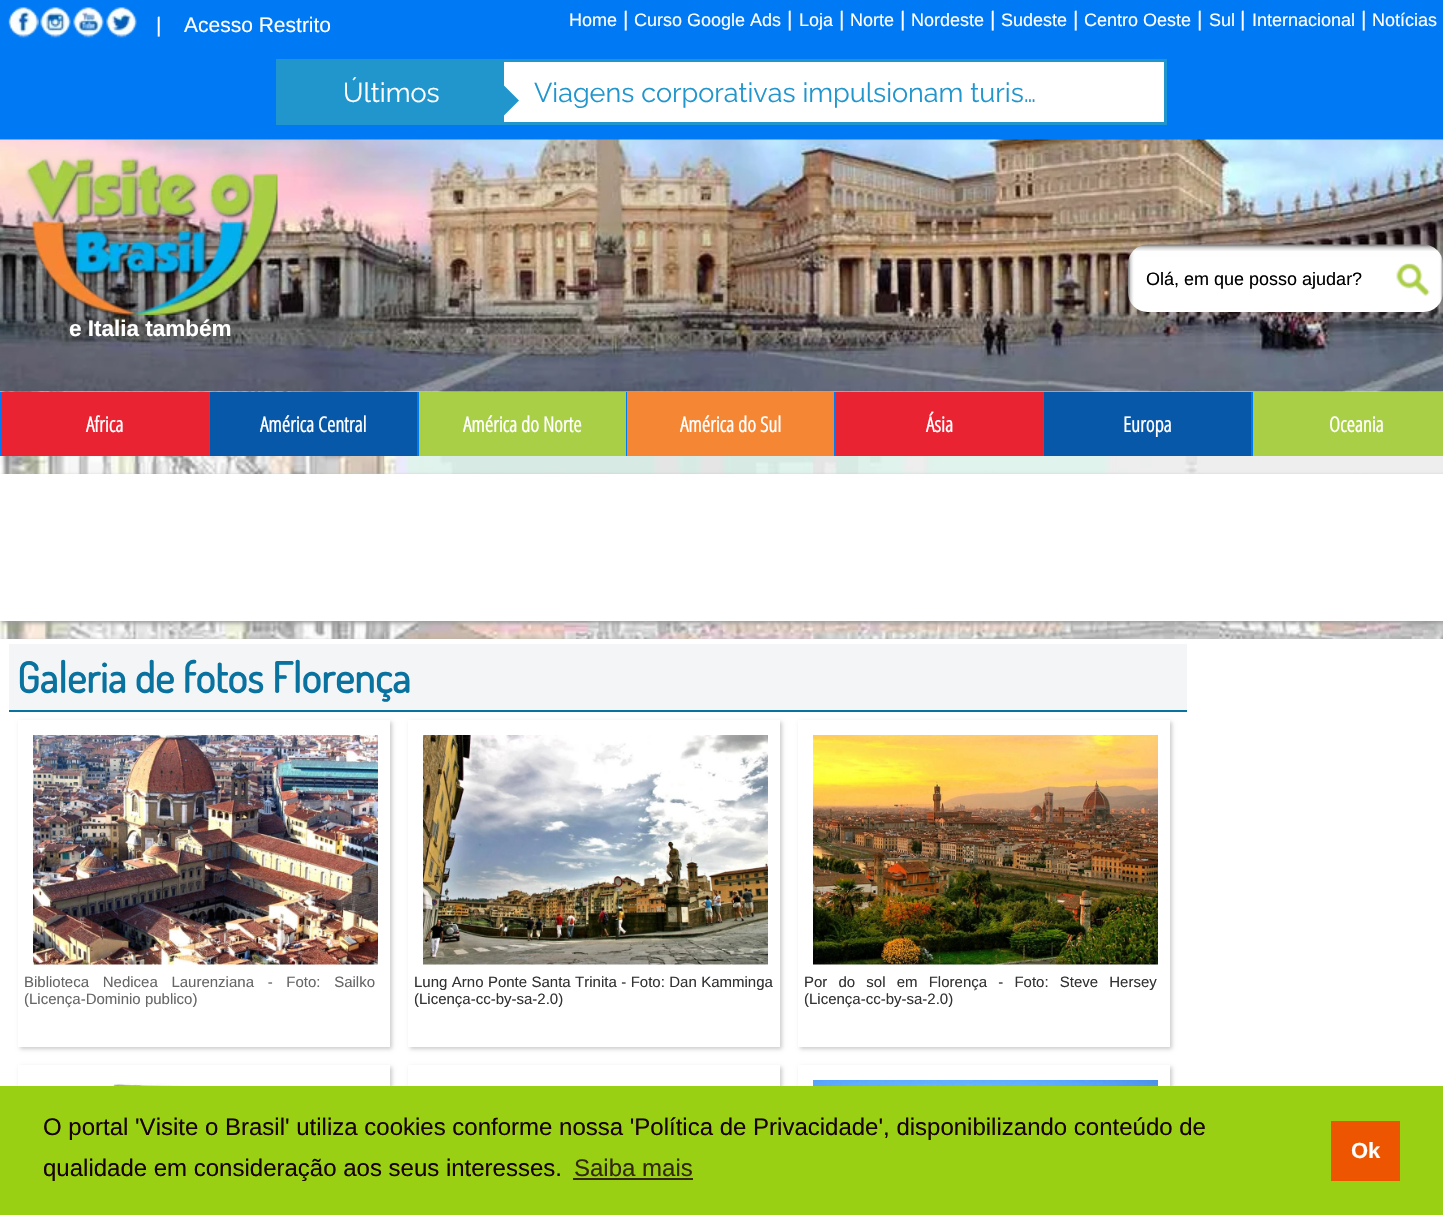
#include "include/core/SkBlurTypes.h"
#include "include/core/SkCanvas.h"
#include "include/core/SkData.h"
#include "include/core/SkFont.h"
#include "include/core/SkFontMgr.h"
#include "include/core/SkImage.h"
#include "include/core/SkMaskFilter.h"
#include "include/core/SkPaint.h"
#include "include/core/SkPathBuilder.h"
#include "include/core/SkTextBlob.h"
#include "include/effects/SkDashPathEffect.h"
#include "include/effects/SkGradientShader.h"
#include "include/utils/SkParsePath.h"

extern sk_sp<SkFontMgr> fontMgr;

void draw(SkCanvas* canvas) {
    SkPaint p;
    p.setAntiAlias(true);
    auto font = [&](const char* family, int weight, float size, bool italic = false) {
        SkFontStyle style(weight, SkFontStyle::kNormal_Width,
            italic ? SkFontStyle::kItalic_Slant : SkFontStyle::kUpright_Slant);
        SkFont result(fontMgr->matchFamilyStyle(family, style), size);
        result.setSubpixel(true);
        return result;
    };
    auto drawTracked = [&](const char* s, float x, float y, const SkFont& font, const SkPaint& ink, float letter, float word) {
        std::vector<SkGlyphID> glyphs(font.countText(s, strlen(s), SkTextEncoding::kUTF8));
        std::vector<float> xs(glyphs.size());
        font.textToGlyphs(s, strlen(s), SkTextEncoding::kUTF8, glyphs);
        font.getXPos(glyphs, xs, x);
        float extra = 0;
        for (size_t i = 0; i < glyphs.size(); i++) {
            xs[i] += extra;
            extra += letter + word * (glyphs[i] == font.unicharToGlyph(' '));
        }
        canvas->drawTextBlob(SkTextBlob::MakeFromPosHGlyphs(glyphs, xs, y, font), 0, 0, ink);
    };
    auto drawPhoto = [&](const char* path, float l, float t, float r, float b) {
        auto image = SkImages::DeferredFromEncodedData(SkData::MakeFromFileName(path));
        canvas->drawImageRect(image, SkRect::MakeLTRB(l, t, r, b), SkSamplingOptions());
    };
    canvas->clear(0xFFFFFFFF);
    drawPhoto("media/1.png", 0, 391, 1443, 639);
    p.setColor(0xFF0079F4);
    canvas->drawRect(SkRect::MakeLTRB(0, 0, 1443, 140), p);
    drawPhoto("media/2.png", 8, 7, 39, 38);
    drawPhoto("media/3.png", 40, 7, 71, 38);
    drawPhoto("media/4.png", 73, 7, 104, 38);
    drawPhoto("media/5.png", 106, 7, 137, 38);
    auto font1 = font("Liberation Sans", 400, 21);
    p.setColor(0xFFFFFFFF);
    canvas->drawString("|", 156, 32, font1, p);
    canvas->drawString("Acesso Restrito", 184, 32, font1, p);
    auto font2 = font("Liberation Sans", 400, 18);
    canvas->drawString("Home", 569, 26, font2, p);
    canvas->drawString("|", 623, 26, font1, p);
    canvas->drawString("Curso Google Ads", 634, 26, font2, p);
    canvas->drawString("|", 787, 26, font1, p);
    canvas->drawString("Loja", 799, 26, font2, p);
    canvas->drawString("|", 839, 26, font1, p);
    canvas->drawString("Norte", 850, 26, font2, p);
    canvas->drawString("|", 900, 26, font1, p);
    canvas->drawString("Nordeste", 911, 26, font2, p);
    canvas->drawString("|", 990, 26, font1, p);
    canvas->drawString("Sudeste", 1001, 26, font2, p);
    canvas->drawString("|", 1073, 26, font1, p);
    canvas->drawString("Centro Oeste", 1084, 26, font2, p);
    canvas->drawString("|", 1197, 26, font1, p);
    canvas->drawString("Sul", 1209, 26, font2, p);
    canvas->drawString("|", 1240, 26, font1, p);
    canvas->drawString("Internacional", 1252, 26, font2, p);
    canvas->drawString("|", 1361, 26, font1, p);
    canvas->drawString("Notícias", 1372, 26, font2, p);
    canvas->drawRect(SkRect::MakeLTRB(504, 62, 1164, 122), p);
    p.setStyle(SkPaint::kStroke_Style);
    p.setStrokeWidth(3);
    p.setColor(0xFF2096CD);
    canvas->drawRect(SkRect::MakeLTRB(277.5f, 60.5f, 1165.5f, 123.5f), p);
    p.setStyle(SkPaint::kFill_Style);
    canvas->drawRect(SkRect::MakeLTRB(279, 62, 504, 122), p);
    auto font3 = font("Raleway", 400, 27);
    p.setColor(0xFFFFFFFF);
    canvas->drawString("Últimos", 343, 102, font3, p);
    p.setColor(0xFF2096CD);
    canvas->drawPath(SkPathBuilder().moveTo(504, 115.5f).lineTo(504, 85.5f).lineTo(519, 100.5f).close().detach(), p);
    canvas->drawString("Viagens corporativas impulsionam turis…", 534, 102, font3, p);
    drawPhoto("media/6.png", 0, 139, 1443, 392);
    drawPhoto("media/7.png", 1128, 244, 1443, 312);
    p.setColor(0xFF000000);
    canvas->drawString("Olá, em que posso ajudar?", 1146, 285, font2, p);
    drawPhoto("media/8.png", 1396, 263, 1430, 296);
    drawPhoto("media/9.png", 25, 156, 278, 315);
    auto font4 = font("Liberation Sans", 700, 22.5f);
    p.setColor(0xFFFFFFFF);
    canvas->drawString("e Italia também", 69, 336, font4, p);
    p.setColor(0xFF0079F4);
    canvas->drawRect(SkRect::MakeLTRB(0, 392, 1253, 456), p);
    p.setColor(0xFFE92332);
    canvas->drawRect(SkRect::MakeLTRB(2, 392, 209, 456), p);
    auto font5 = font("Open Sans Condensed", 700, 21);
    p.setColor(0xFFFFFFFF);
    canvas->drawString("Africa", 86, 432, font5, p);
    p.setColor(0xFF0758A9);
    canvas->drawRect(SkRect::MakeLTRB(210, 392, 417, 456), p);
    p.setColor(0xFFFFFFFF);
    canvas->drawString("América Central", 260, 432, font5, p);
    p.setColor(0xFFA8CF45);
    canvas->drawRect(SkRect::MakeLTRB(419, 392, 626, 456), p);
    p.setColor(0xFFFFFFFF);
    canvas->drawString("América do Norte", 463, 432, font5, p);
    p.setColor(0xFFF58634);
    canvas->drawRect(SkRect::MakeLTRB(627, 392, 834, 456), p);
    p.setColor(0xFFFFFFFF);
    canvas->drawString("América do Sul", 680, 432, font5, p);
    p.setColor(0xFFE92332);
    canvas->drawRect(SkRect::MakeLTRB(836, 392, 1043, 456), p);
    p.setColor(0xFFFFFFFF);
    canvas->drawString("Ásia", 926, 432, font5, p);
    p.setColor(0xFF0758A9);
    canvas->drawRect(SkRect::MakeLTRB(1044, 392, 1251, 456), p);
    p.setColor(0xFFFFFFFF);
    canvas->drawString("Europa", 1123, 432, font5, p);
    p.setColor(0xFFA8CF45);
    canvas->drawRect(SkRect::MakeLTRB(1253, 392, 1443, 456), p);
    p.setColor(0xFFFFFFFF);
    canvas->drawString("Oceania", 1329, 432, font5, p);
    p.setColor(0xFF999999);
    p.setMaskFilter(SkMaskFilter::MakeBlur(kNormal_SkBlurStyle, 2));
    canvas->drawRect(SkRect::MakeLTRB(2, 476, 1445, 623), p);
    p.setMaskFilter(nullptr);
    p.setColor(0xFFFFFFFF);
    canvas->drawRect(SkRect::MakeLTRB(0, 474, 1443, 621), p);
    p.setColor(0xFF999999);
    p.setMaskFilter(SkMaskFilter::MakeBlur(kNormal_SkBlurStyle, 2));
    canvas->drawRect(SkRect::MakeLTRB(2, 641, 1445, 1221), p);
    p.setMaskFilter(nullptr);
    {
        const struct { float l, t, r, b; SkColor color; } items[] = {
            {0, 639, 1443, 1086, 0xFFFFFFFF},
            {9, 644, 1187, 710, 0xFFF4F5F6},
            {9, 710, 1187, 712, 0xFF09729F},
        };
        for (auto [l, t, r, b, color] : items) {
            p.setColor(color);
            canvas->drawRect(SkRect::MakeLTRB(l, t, r, b), p);
        }
    }
    auto font6 = font("Dosis", 700, 42);
    canvas->drawString("Galeria de fotos Florença", 17, 693, font6, p);
    canvas->save();
    canvas->clipPath(SkPathBuilder(SkPathFillType::kEvenOdd).moveTo(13, 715).lineTo(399, 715).lineTo(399, 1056).lineTo(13, 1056).close().moveTo(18, 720).lineTo(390, 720).lineTo(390, 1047).lineTo(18, 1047).close().detach(), true);
    p.setColor(0xFFCCCCCC);
    p.setMaskFilter(SkMaskFilter::MakeBlur(kNormal_SkBlurStyle, 2));
    canvas->drawRect(SkRect::MakeLTRB(20, 722, 392, 1049), p);
    p.setMaskFilter(nullptr);
    canvas->restore();
    drawPhoto("media/10.png", 33, 735, 378, 965);
    auto font7 = font("Liberation Sans", 400, 15);
    p.setColor(0xFF666666);
    drawTracked("Biblioteca Nedicea Laurenziana - Foto: Sailko", 24, 987, font7, p, 0, 9.5f);
    canvas->drawString("(Licença-Dominio publico)", 24, 1004, font7, p);
    canvas->save();
    canvas->clipPath(SkPathBuilder(SkPathFillType::kEvenOdd).moveTo(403, 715).lineTo(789, 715).lineTo(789, 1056).lineTo(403, 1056).close().moveTo(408, 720).lineTo(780, 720).lineTo(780, 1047).lineTo(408, 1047).close().detach(), true);
    p.setColor(0xFFCCCCCC);
    p.setMaskFilter(SkMaskFilter::MakeBlur(kNormal_SkBlurStyle, 2));
    canvas->drawRect(SkRect::MakeLTRB(410, 722, 782, 1049), p);
    p.setMaskFilter(nullptr);
    canvas->restore();
    drawPhoto("media/11.png", 423, 735, 768, 965);
    p.setColor(0xFF333333);
    drawTracked("Lung Arno Ponte Santa Trinita - Foto: Dan Kamminga", 414, 987, font7, p, 0, 0.25f);
    canvas->drawString("(Licença-cc-by-sa-2.0)", 414, 1004, font7, p);
    canvas->save();
    canvas->clipPath(SkPathBuilder(SkPathFillType::kEvenOdd).moveTo(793, 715).lineTo(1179, 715).lineTo(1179, 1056).lineTo(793, 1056).close().moveTo(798, 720).lineTo(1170, 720).lineTo(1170, 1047).lineTo(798, 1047).close().detach(), true);
    p.setColor(0xFFCCCCCC);
    p.setMaskFilter(SkMaskFilter::MakeBlur(kNormal_SkBlurStyle, 2));
    canvas->drawRect(SkRect::MakeLTRB(800, 722, 1172, 1049), p);
    p.setMaskFilter(nullptr);
    canvas->restore();
    drawPhoto("media/12.png", 813, 735, 1158, 965);
    p.setColor(0xFF333333);
    drawTracked("Por do sol em Florença - Foto: Steve Hersey", 804, 987, font7, p, 0, 7);
    canvas->drawString("(Licença-cc-by-sa-2.0)", 804, 1004, font7, p);
    canvas->save();
    canvas->clipPath(SkPathBuilder(SkPathFillType::kEvenOdd).moveTo(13, 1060).lineTo(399, 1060).lineTo(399, 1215).lineTo(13, 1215).close().moveTo(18, 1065).lineTo(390, 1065).lineTo(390, 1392).lineTo(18, 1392).close().detach(), true);
    p.setColor(0xFFCCCCCC);
    p.setMaskFilter(SkMaskFilter::MakeBlur(kNormal_SkBlurStyle, 2));
    canvas->drawRect(SkRect::MakeLTRB(20, 1067, 392, 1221), p);
    p.setMaskFilter(nullptr);
    canvas->restore();
    drawPhoto("media/13.png", 33, 1083, 378, 1086);
    canvas->save();
    canvas->clipPath(SkPathBuilder(SkPathFillType::kEvenOdd).moveTo(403, 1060).lineTo(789, 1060).lineTo(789, 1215).lineTo(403, 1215).close().moveTo(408, 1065).lineTo(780, 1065).lineTo(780, 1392).lineTo(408, 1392).close().detach(), true);
    p.setMaskFilter(SkMaskFilter::MakeBlur(kNormal_SkBlurStyle, 2));
    canvas->drawRect(SkRect::MakeLTRB(410, 1067, 782, 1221), p);
    p.setMaskFilter(nullptr);
    canvas->restore();
    canvas->save();
    canvas->clipPath(SkPathBuilder(SkPathFillType::kEvenOdd).moveTo(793, 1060).lineTo(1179, 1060).lineTo(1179, 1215).lineTo(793, 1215).close().moveTo(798, 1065).lineTo(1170, 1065).lineTo(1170, 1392).lineTo(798, 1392).close().detach(), true);
    p.setMaskFilter(SkMaskFilter::MakeBlur(kNormal_SkBlurStyle, 2));
    canvas->drawRect(SkRect::MakeLTRB(800, 1067, 1172, 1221), p);
    p.setMaskFilter(nullptr);
    canvas->restore();
    drawPhoto("media/14.png", 813, 1080, 1158, 1086);
    p.setColor(0xFF99D013);
    canvas->drawRect(SkRect::MakeLTRB(0, 1086, 1443, 1215), p);
    auto font8 = font("Liberation Sans", 400, 24);
    p.setColor(0xFF190101);
    canvas->drawString("O portal 'Visite o Brasil' utiliza cookies conforme nossa 'Política de Privacidade', disponibilizando conteúdo de", 43, 1135, font8, p);
    canvas->drawString("qualidade em consideração aos seus interesses.", 43, 1176, font8, p);
    p.setColor(0xFF332A05);
    canvas->drawString("Saiba mais", 574, 1176, font8, p);
    canvas->drawRect(SkRect::MakeLTRB(573, 1178, 693, 1180), p);
    p.setColor(0xFFED5500);
    canvas->drawRect(SkRect::MakeLTRB(1331, 1121, 1400, 1181), p);
    auto font9 = font("Liberation Sans", 700, 22);
    p.setColor(0xFFFFFFFF);
    canvas->drawString("Ok", 1351, 1158, font9, p);
}
